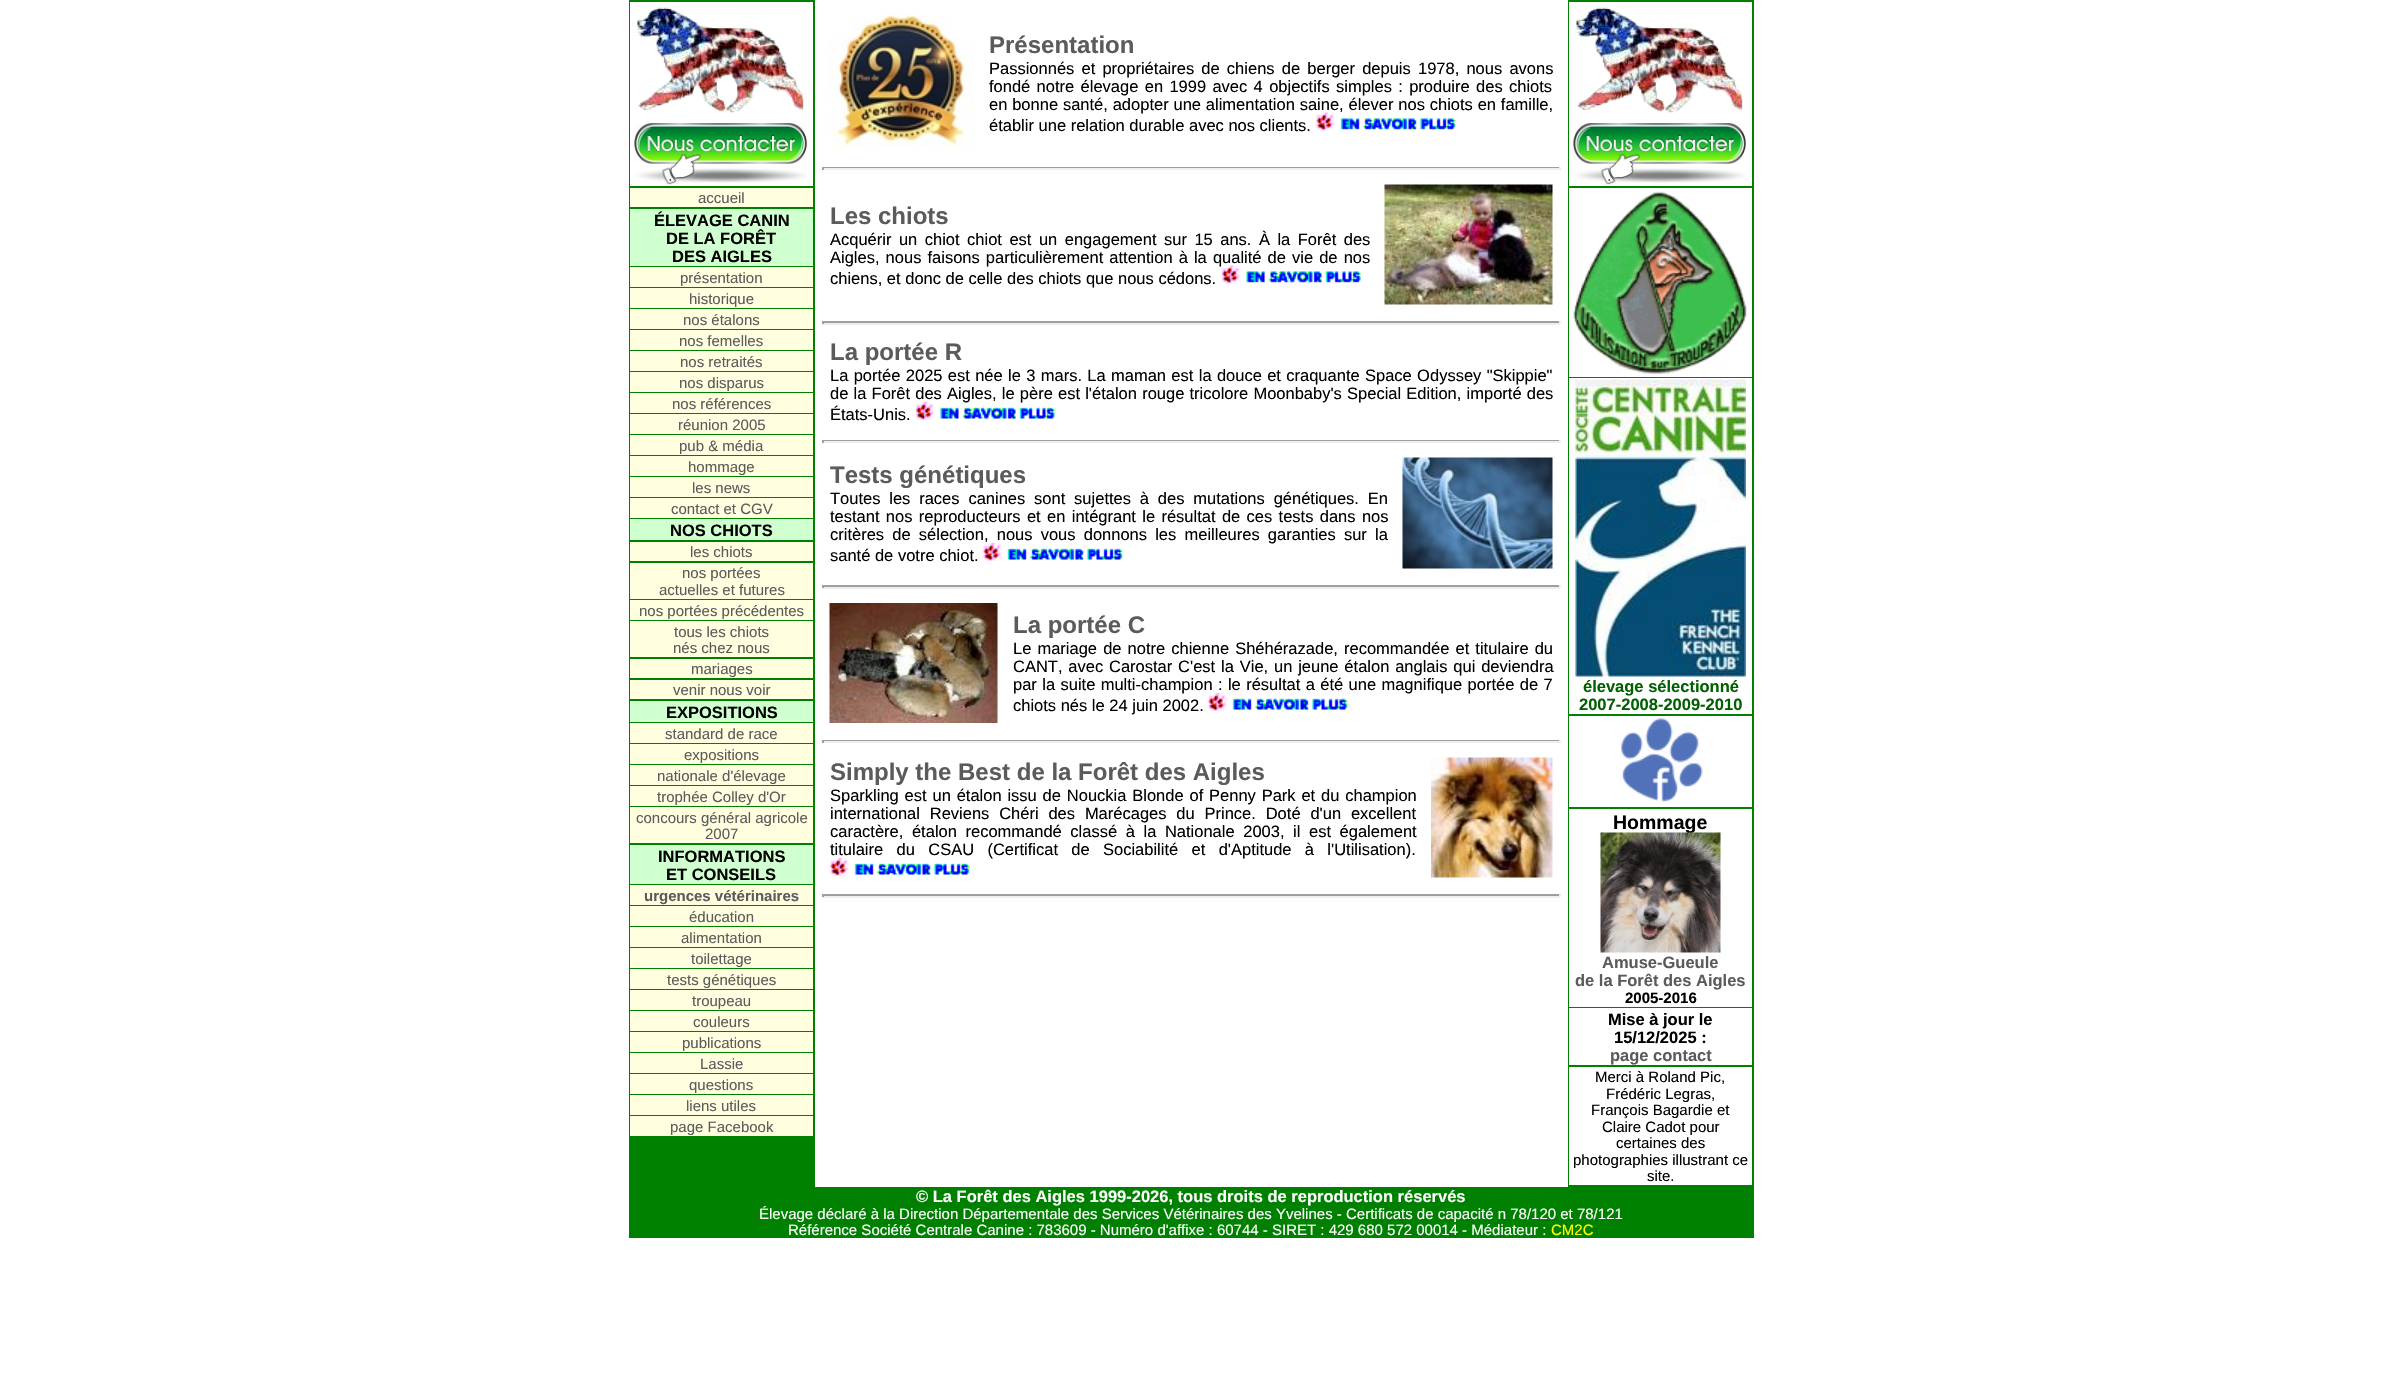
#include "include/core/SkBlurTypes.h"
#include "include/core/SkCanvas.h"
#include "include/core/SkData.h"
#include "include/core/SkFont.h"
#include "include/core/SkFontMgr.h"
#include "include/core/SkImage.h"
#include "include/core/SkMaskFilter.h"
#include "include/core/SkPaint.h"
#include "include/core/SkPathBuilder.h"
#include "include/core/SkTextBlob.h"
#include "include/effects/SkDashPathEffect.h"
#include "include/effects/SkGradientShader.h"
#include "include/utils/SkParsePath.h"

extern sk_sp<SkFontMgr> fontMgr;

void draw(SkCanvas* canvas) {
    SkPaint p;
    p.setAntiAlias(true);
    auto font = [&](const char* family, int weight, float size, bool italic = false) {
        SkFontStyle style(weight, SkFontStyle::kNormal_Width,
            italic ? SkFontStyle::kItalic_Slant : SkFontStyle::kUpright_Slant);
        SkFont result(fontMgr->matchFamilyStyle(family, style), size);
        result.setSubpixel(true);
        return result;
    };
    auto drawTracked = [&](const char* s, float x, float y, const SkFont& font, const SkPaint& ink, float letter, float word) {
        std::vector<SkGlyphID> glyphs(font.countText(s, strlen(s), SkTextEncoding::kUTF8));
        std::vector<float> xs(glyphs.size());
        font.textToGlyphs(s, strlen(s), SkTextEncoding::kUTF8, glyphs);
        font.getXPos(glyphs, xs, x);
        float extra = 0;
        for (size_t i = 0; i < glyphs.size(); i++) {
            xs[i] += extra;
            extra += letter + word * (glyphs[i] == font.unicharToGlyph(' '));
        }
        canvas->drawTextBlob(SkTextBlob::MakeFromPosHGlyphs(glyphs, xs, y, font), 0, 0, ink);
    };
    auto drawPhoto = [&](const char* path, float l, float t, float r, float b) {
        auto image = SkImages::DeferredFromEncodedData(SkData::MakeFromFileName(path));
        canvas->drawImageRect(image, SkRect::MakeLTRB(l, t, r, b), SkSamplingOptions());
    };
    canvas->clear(0xFFFFFFFF);
    p.setColor(0xFF008000);
    canvas->drawRect(SkRect::MakeLTRB(629, 0, 1754, 1238), p);
    p.setColor(0xFFFFFFFF);
    canvas->drawRect(SkRect::MakeLTRB(630, 2, 813, 186), p);
    drawPhoto("media/1.png", 637, 7, 804, 113);
    drawPhoto("media/2.png", 634, 123, 807, 185);
    p.setColor(0xFFFFFFE0);
    canvas->drawRect(SkRect::MakeLTRB(630, 188, 813, 207), p);
    auto font1 = font("Liberation Sans", 400, 15);
    p.setColor(0xFF5B5B5B);
    canvas->drawString("accueil", 698, 203, font1, p);
    p.setColor(0xFFD0FFD0);
    canvas->drawRect(SkRect::MakeLTRB(630, 209, 813, 266), p);
    auto font2 = font("Liberation Sans", 700, 16.5f);
    p.setColor(0xFF000000);
    {
        const struct { const char* s; float x, y; } items[] = {
            {"ÉLEVAGE CANIN", 654, 226},
            {"DE LA FORÊT", 666, 244},
            {"DES AIGLES", 672, 262},
        };
        for (auto [s, x, y] : items) {
            canvas->drawString(s, x, y, font2, p);
        }
    }
    p.setColor(0xFFFFFFE0);
    canvas->drawRect(SkRect::MakeLTRB(630, 267, 813, 287), p);
    p.setColor(0xFF5B5B5B);
    canvas->drawString("présentation", 680, 283, font1, p);
    p.setColor(0xFFFFFFE0);
    canvas->drawRect(SkRect::MakeLTRB(630, 288, 813, 308), p);
    p.setColor(0xFF5B5B5B);
    canvas->drawString("historique", 689, 304, font1, p);
    p.setColor(0xFFFFFFE0);
    canvas->drawRect(SkRect::MakeLTRB(630, 309, 813, 329), p);
    p.setColor(0xFF5B5B5B);
    canvas->drawString("nos étalons", 683, 325, font1, p);
    p.setColor(0xFFFFFFE0);
    canvas->drawRect(SkRect::MakeLTRB(630, 330, 813, 350), p);
    p.setColor(0xFF5B5B5B);
    canvas->drawString("nos femelles", 679, 346, font1, p);
    p.setColor(0xFFFFFFE0);
    canvas->drawRect(SkRect::MakeLTRB(630, 351, 813, 371), p);
    p.setColor(0xFF5B5B5B);
    canvas->drawString("nos retraités", 680, 367, font1, p);
    p.setColor(0xFFFFFFE0);
    canvas->drawRect(SkRect::MakeLTRB(630, 372, 813, 392), p);
    p.setColor(0xFF5B5B5B);
    canvas->drawString("nos disparus", 679, 388, font1, p);
    p.setColor(0xFFFFFFE0);
    canvas->drawRect(SkRect::MakeLTRB(630, 393, 813, 413), p);
    p.setColor(0xFF5B5B5B);
    canvas->drawString("nos références", 672, 409, font1, p);
    p.setColor(0xFFFFFFE0);
    canvas->drawRect(SkRect::MakeLTRB(630, 414, 813, 434), p);
    p.setColor(0xFF5B5B5B);
    canvas->drawString("réunion 2005", 678, 430, font1, p);
    p.setColor(0xFFFFFFE0);
    canvas->drawRect(SkRect::MakeLTRB(630, 435, 813, 455), p);
    p.setColor(0xFF5B5B5B);
    canvas->drawString("pub & média", 679, 451, font1, p);
    p.setColor(0xFFFFFFE0);
    canvas->drawRect(SkRect::MakeLTRB(630, 456, 813, 476), p);
    p.setColor(0xFF5B5B5B);
    canvas->drawString("hommage", 688, 472, font1, p);
    p.setColor(0xFFFFFFE0);
    canvas->drawRect(SkRect::MakeLTRB(630, 477, 813, 497), p);
    p.setColor(0xFF5B5B5B);
    canvas->drawString("les news", 692, 493, font1, p);
    p.setColor(0xFFFFFFE0);
    canvas->drawRect(SkRect::MakeLTRB(630, 498, 813, 518), p);
    p.setColor(0xFF5B5B5B);
    canvas->drawString("contact et CGV", 671, 514, font1, p);
    p.setColor(0xFFD0FFD0);
    canvas->drawRect(SkRect::MakeLTRB(630, 519, 813, 540), p);
    p.setColor(0xFF000000);
    canvas->drawString("NOS CHIOTS", 670, 536, font2, p);
    p.setColor(0xFFFFFFE0);
    canvas->drawRect(SkRect::MakeLTRB(630, 542, 813, 561), p);
    p.setColor(0xFF5B5B5B);
    canvas->drawString("les chiots", 690, 557, font1, p);
    p.setColor(0xFFFFFFE0);
    canvas->drawRect(SkRect::MakeLTRB(630, 563, 813, 599), p);
    p.setColor(0xFF5B5B5B);
    canvas->drawString("nos portées", 682, 578, font1, p);
    canvas->drawString("actuelles et futures", 659, 595, font1, p);
    p.setColor(0xFFFFFFE0);
    canvas->drawRect(SkRect::MakeLTRB(630, 600, 813, 620), p);
    p.setColor(0xFF5B5B5B);
    canvas->drawString("nos portées précédentes", 639, 616, font1, p);
    p.setColor(0xFFFFFFE0);
    canvas->drawRect(SkRect::MakeLTRB(630, 621, 813, 657), p);
    p.setColor(0xFF5B5B5B);
    canvas->drawString("tous les chiots", 674, 637, font1, p);
    canvas->drawString("nés chez nous", 673, 653, font1, p);
    p.setColor(0xFFFFFFE0);
    canvas->drawRect(SkRect::MakeLTRB(630, 659, 813, 678), p);
    p.setColor(0xFF5B5B5B);
    canvas->drawString("mariages", 691, 674, font1, p);
    p.setColor(0xFFFFFFE0);
    canvas->drawRect(SkRect::MakeLTRB(630, 680, 813, 699), p);
    p.setColor(0xFF5B5B5B);
    canvas->drawString("venir nous voir", 673, 695, font1, p);
    p.setColor(0xFFD0FFD0);
    canvas->drawRect(SkRect::MakeLTRB(630, 701, 813, 722), p);
    p.setColor(0xFF000000);
    canvas->drawString("EXPOSITIONS", 666, 718, font2, p);
    p.setColor(0xFFFFFFE0);
    canvas->drawRect(SkRect::MakeLTRB(630, 723, 813, 743), p);
    p.setColor(0xFF5B5B5B);
    canvas->drawString("standard de race", 665, 739, font1, p);
    p.setColor(0xFFFFFFE0);
    canvas->drawRect(SkRect::MakeLTRB(630, 744, 813, 764), p);
    p.setColor(0xFF5B5B5B);
    canvas->drawString("expositions", 684, 760, font1, p);
    p.setColor(0xFFFFFFE0);
    canvas->drawRect(SkRect::MakeLTRB(630, 765, 813, 785), p);
    p.setColor(0xFF5B5B5B);
    canvas->drawString("nationale d'élevage", 657, 781, font1, p);
    p.setColor(0xFFFFFFE0);
    canvas->drawRect(SkRect::MakeLTRB(630, 786, 813, 806), p);
    p.setColor(0xFF5B5B5B);
    canvas->drawString("trophée Colley d'Or", 657, 802, font1, p);
    p.setColor(0xFFFFFFE0);
    canvas->drawRect(SkRect::MakeLTRB(630, 807, 813, 843), p);
    p.setColor(0xFF5B5B5B);
    canvas->drawString("concours général agricole", 636, 823, font1, p);
    canvas->drawString("2007", 705, 839, font1, p);
    p.setColor(0xFFD0FFD0);
    canvas->drawRect(SkRect::MakeLTRB(630, 845, 813, 884), p);
    p.setColor(0xFF000000);
    canvas->drawString("INFORMATIONS", 658, 862, font2, p);
    canvas->drawString("ET CONSEILS", 666, 880, font2, p);
    p.setColor(0xFFFFFFE0);
    canvas->drawRect(SkRect::MakeLTRB(630, 885, 813, 905), p);
    auto font3 = font("Liberation Sans", 700, 15);
    p.setColor(0xFF5B5B5B);
    canvas->drawString("urgences vétérinaires", 644, 901, font3, p);
    p.setColor(0xFFFFFFE0);
    canvas->drawRect(SkRect::MakeLTRB(630, 906, 813, 926), p);
    p.setColor(0xFF5B5B5B);
    canvas->drawString("éducation", 689, 922, font1, p);
    p.setColor(0xFFFFFFE0);
    canvas->drawRect(SkRect::MakeLTRB(630, 927, 813, 947), p);
    p.setColor(0xFF5B5B5B);
    canvas->drawString("alimentation", 681, 943, font1, p);
    p.setColor(0xFFFFFFE0);
    canvas->drawRect(SkRect::MakeLTRB(630, 948, 813, 968), p);
    p.setColor(0xFF5B5B5B);
    canvas->drawString("toilettage", 691, 964, font1, p);
    p.setColor(0xFFFFFFE0);
    canvas->drawRect(SkRect::MakeLTRB(630, 969, 813, 989), p);
    p.setColor(0xFF5B5B5B);
    canvas->drawString("tests génétiques", 667, 985, font1, p);
    p.setColor(0xFFFFFFE0);
    canvas->drawRect(SkRect::MakeLTRB(630, 990, 813, 1010), p);
    p.setColor(0xFF5B5B5B);
    canvas->drawString("troupeau", 692, 1006, font1, p);
    p.setColor(0xFFFFFFE0);
    canvas->drawRect(SkRect::MakeLTRB(630, 1011, 813, 1031), p);
    p.setColor(0xFF5B5B5B);
    canvas->drawString("couleurs", 693, 1027, font1, p);
    p.setColor(0xFFFFFFE0);
    canvas->drawRect(SkRect::MakeLTRB(630, 1032, 813, 1052), p);
    p.setColor(0xFF5B5B5B);
    canvas->drawString("publications", 682, 1048, font1, p);
    p.setColor(0xFFFFFFE0);
    canvas->drawRect(SkRect::MakeLTRB(630, 1053, 813, 1073), p);
    p.setColor(0xFF5B5B5B);
    canvas->drawString("Lassie", 700, 1069, font1, p);
    p.setColor(0xFFFFFFE0);
    canvas->drawRect(SkRect::MakeLTRB(630, 1074, 813, 1094), p);
    p.setColor(0xFF5B5B5B);
    canvas->drawString("questions", 689, 1090, font1, p);
    p.setColor(0xFFFFFFE0);
    canvas->drawRect(SkRect::MakeLTRB(630, 1095, 813, 1115), p);
    p.setColor(0xFF5B5B5B);
    canvas->drawString("liens utiles", 686, 1111, font1, p);
    p.setColor(0xFFFFFFE0);
    canvas->drawRect(SkRect::MakeLTRB(630, 1116, 813, 1136), p);
    p.setColor(0xFF5B5B5B);
    canvas->drawString("page Facebook", 670, 1132, font1, p);
    p.setColor(0xFFFFFFFF);
    canvas->drawRect(SkRect::MakeLTRB(815, 0, 1568, 1187), p);
    drawPhoto("media/3.png", 829, 15, 974, 150);
    auto font4 = font("Liberation Sans", 700, 24);
    p.setColor(0xFF5B5B5B);
    canvas->drawString("Présentation", 989, 53, font4, p);
    auto font5 = font("Liberation Sans", 400, 16.5f);
    p.setColor(0xFF000000);
    drawTracked("Passionnés et propriétaires de chiens de berger depuis 1978, nous avons", 989, 74, font5, p, 0, 2.6f);
    drawTracked("fondé notre élevage en 1999 avec 4 objectifs simples : produire des chiots", 989, 92, font5, p, 0, 1.75f);
    drawTracked("en bonne santé, adopter une alimentation saine, élever nos chiots en famille,", 989, 110, font5, p, 0, 0.25f);
    canvas->drawString("établir une relation durable avec nos clients.", 989, 131, font5, p);
    drawPhoto("media/4.png", 1315, 112, 1456, 131);
    {
        const struct { float l, t, r, b; SkColor color; } items[] = {
            {822, 167, 1560, 168, 0xFF9F9F9F},
            {1559, 167, 1561, 170, 0xFFEEEEEE},
            {822, 168, 1560, 170, 0xFFEEEEEE},
            {822, 167, 824, 170, 0xFF9F9F9F},
        };
        for (auto [l, t, r, b, color] : items) {
            p.setColor(color);
            canvas->drawRect(SkRect::MakeLTRB(l, t, r, b), p);
        }
    }
    p.setColor(0xFF5B5B5B);
    canvas->drawString("Les chiots", 830, 224, font4, p);
    p.setColor(0xFF000000);
    drawTracked("Acquérir un chiot chiot est un engagement sur 15 ans. À la Forêt des", 830, 245, font5, p, 0, 2.9f);
    drawTracked("Aigles, nous faisons particulièrement attention à la qualité de vie de nos", 830, 263, font5, p, 0, 1.5f);
    canvas->drawString("chiens, et donc de celle des chiots que nous cédons.", 830, 284, font5, p);
    drawPhoto("media/5.png", 1221, 265, 1361, 284);
    drawPhoto("media/6.png", 1384, 184, 1553, 305);
    {
        const struct { float l, t, r, b; SkColor color; } items[] = {
            {822, 321, 1560, 323, 0xFF9F9F9F},
            {1559, 321, 1561, 324, 0xFFEEEEEE},
            {822, 323, 1560, 325, 0xFFEEEEEE},
            {822, 321, 824, 324, 0xFF9F9F9F},
        };
        for (auto [l, t, r, b, color] : items) {
            p.setColor(color);
            canvas->drawRect(SkRect::MakeLTRB(l, t, r, b), p);
        }
    }
    p.setColor(0xFF5B5B5B);
    canvas->drawString("La portée R", 830, 360, font4, p);
    p.setColor(0xFF000000);
    drawTracked("La portée 2025 est née le 3 mars. La maman est la douce et craquante Space Odyssey \"Skippie\"", 830, 381, font5, p, 0, 0.75f);
    drawTracked("de la Forêt des Aigles, le père est l'étalon rouge tricolore Moonbaby's Special Edition, importé des", 830, 399, font5, p, 0, 0.6f);
    canvas->drawString("États-Unis.", 830, 420, font5, p);
    drawPhoto("media/7.png", 915, 402, 1055, 420);
    {
        const struct { float l, t, r, b; SkColor color; } items[] = {
            {822, 440, 1560, 441, 0xFF9F9F9F},
            {1559, 440, 1561, 443, 0xFFEEEEEE},
            {822, 441, 1560, 443, 0xFFEEEEEE},
            {822, 440, 824, 443, 0xFF9F9F9F},
        };
        for (auto [l, t, r, b, color] : items) {
            p.setColor(color);
            canvas->drawRect(SkRect::MakeLTRB(l, t, r, b), p);
        }
    }
    p.setColor(0xFF5B5B5B);
    canvas->drawString("Tests génétiques", 830, 483, font4, p);
    p.setColor(0xFF000000);
    drawTracked("Toutes les races canines sont sujettes à des mutations génétiques. En", 830, 504, font5, p, 0, 4.25f);
    drawTracked("testant nos reproducteurs et en intégrant le résultat de ces tests dans nos", 830, 522, font5, p, 0, 1.75f);
    drawTracked("critères de sélection, nous vous donnons les meilleures garanties sur la", 830, 540, font5, p, 0, 3.6f);
    canvas->drawString("santé de votre chiot.", 830, 561, font5, p);
    drawPhoto("media/8.png", 982, 543, 1123, 561);
    drawPhoto("media/9.png", 1402, 457, 1553, 569);
    {
        const struct { float l, t, r, b; SkColor color; } items[] = {
            {822, 585, 1560, 587, 0xFF9F9F9F},
            {1559, 585, 1561, 588, 0xFFEEEEEE},
            {822, 587, 1560, 589, 0xFFEEEEEE},
            {822, 585, 824, 588, 0xFF9F9F9F},
        };
        for (auto [l, t, r, b, color] : items) {
            p.setColor(color);
            canvas->drawRect(SkRect::MakeLTRB(l, t, r, b), p);
        }
    }
    drawPhoto("media/10.png", 829, 603, 998, 723);
    p.setColor(0xFF5B5B5B);
    canvas->drawString("La portée C", 1013, 633, font4, p);
    p.setColor(0xFF000000);
    drawTracked("Le mariage de notre chienne Shéhérazade, recommandée et titulaire du", 1013, 654, font5, p, 0, 1.5f);
    drawTracked("CANT, avec Carostar C'est la Vie, un jeune étalon anglais qui deviendra", 1013, 672, font5, p, 0, 1.25f);
    drawTracked("par la suite multi-champion : le résultat a été une magnifique portée de 7", 1013, 690, font5, p, 0, 0.8f);
    canvas->drawString("chiots nés le 24 juin 2002.", 1013, 711, font5, p);
    drawPhoto("media/8.png", 1207, 693, 1348, 711);
    {
        const struct { float l, t, r, b; SkColor color; } items[] = {
            {822, 740, 1560, 741, 0xFF9F9F9F},
            {1559, 740, 1561, 743, 0xFFEEEEEE},
            {822, 741, 1560, 743, 0xFFEEEEEE},
            {822, 740, 824, 743, 0xFF9F9F9F},
        };
        for (auto [l, t, r, b, color] : items) {
            p.setColor(color);
            canvas->drawRect(SkRect::MakeLTRB(l, t, r, b), p);
        }
    }
    p.setColor(0xFF5B5B5B);
    canvas->drawString("Simply the Best de la Forêt des Aigles", 830, 780, font4, p);
    p.setColor(0xFF000000);
    drawTracked("Sparkling est un étalon issu de Nouckia Blonde of Penny Park et du champion", 830, 801, font5, p, 0, 1.25f);
    drawTracked("international Reviens Chéri des Marécages du Prince. Doté d'un excellent", 830, 819, font5, p, 0, 5.25f);
    drawTracked("caractère, étalon recommandé classé à la Nationale 2003, il est également", 830, 837, font5, p, 0, 4);
    drawTracked("titulaire du CSAU (Certificat de Sociabilité et d'Aptitude à l'Utilisation).", 830, 855, font5, p, 0, 8.75f);
    drawPhoto("media/8.png", 829, 858, 970, 876);
    drawPhoto("media/11.png", 1431, 757, 1553, 878);
    {
        const struct { float l, t, r, b; SkColor color; } items[] = {
            {822, 894, 1560, 896, 0xFF9F9F9F},
            {1559, 894, 1561, 897, 0xFFEEEEEE},
            {822, 896, 1560, 898, 0xFFEEEEEE},
            {822, 894, 824, 897, 0xFF9F9F9F},
            {1569, 2, 1752, 186, 0xFFFFFFFF},
        };
        for (auto [l, t, r, b, color] : items) {
            p.setColor(color);
            canvas->drawRect(SkRect::MakeLTRB(l, t, r, b), p);
        }
    }
    drawPhoto("media/12.png", 1576, 7, 1743, 113);
    drawPhoto("media/13.png", 1573, 123, 1746, 185);
    canvas->drawRect(SkRect::MakeLTRB(1569, 188, 1752, 377), p);
    drawPhoto("media/14.png", 1573, 191, 1747, 374);
    canvas->drawRect(SkRect::MakeLTRB(1569, 378, 1752, 714), p);
    drawPhoto("media/15.png", 1575, 379, 1746, 677);
    p.setColor(0xFF006000);
    canvas->drawString("élevage sélectionné", 1583, 692, font2, p);
    canvas->drawString("2007-2008-2009-2010", 1579, 710, font2, p);
    p.setColor(0xFFFFFFFF);
    canvas->drawRect(SkRect::MakeLTRB(1569, 716, 1752, 807), p);
    drawPhoto("media/16.png", 1621, 718, 1703, 802);
    canvas->drawRect(SkRect::MakeLTRB(1569, 809, 1752, 1007), p);
    auto font6 = font("Liberation Sans", 700, 19.5f);
    p.setColor(0xFF000000);
    canvas->drawString("Hommage", 1613, 829, font6, p);
    drawPhoto("media/17.png", 1600, 832, 1721, 953);
    p.setColor(0xFF5B5B5B);
    canvas->drawString("Amuse-Gueule", 1602, 968, font2, p);
    canvas->drawString("de la Forêt des Aigles", 1575, 986, font2, p);
    p.setColor(0xFF000000);
    canvas->drawString("2005-2016", 1625, 1003, font3, p);
    p.setColor(0xFFFFFFFF);
    canvas->drawRect(SkRect::MakeLTRB(1569, 1008, 1752, 1065), p);
    p.setColor(0xFF000000);
    canvas->drawString("Mise à jour le", 1608, 1025, font2, p);
    canvas->drawString("15/12/2025 :", 1614, 1043, font2, p);
    p.setColor(0xFF5B5B5B);
    canvas->drawString("page contact", 1610, 1061, font2, p);
    p.setColor(0xFFFFFFFF);
    canvas->drawRect(SkRect::MakeLTRB(1569, 1067, 1752, 1185), p);
    p.setColor(0xFF000000);
    {
        const struct { const char* s; float x, y; } items[] = {
            {"Merci à Roland Pic,", 1595, 1082},
            {"Frédéric Legras,", 1606, 1099},
            {"François Bagardie et", 1591, 1115},
            {"Claire Cadot pour", 1602, 1132},
            {"certaines des", 1616, 1148},
            {"photographies illustrant ce", 1573, 1165},
            {"site.", 1647, 1181},
        };
        for (auto [s, x, y] : items) {
            canvas->drawString(s, x, y, font1, p);
        }
    }
    p.setColor(0xFFFFFFFF);
    canvas->drawString("© La Forêt des Aigles 1999-2026, tous droits de reproduction réservés", 916, 1202, font2, p);
    canvas->drawString("Élevage déclaré à la Direction Départementale des Services Vétérinaires des Yvelines - Certificats de capacité n 78/120 et 78/121", 759, 1219, font1, p);
    canvas->drawString("Référence Société Centrale Canine : 783609 - Numéro d'affixe : 60744 - SIRET : 429 680 572 00014 - Médiateur :", 788, 1235, font1, p);
    p.setColor(0xFFFFFF00);
    canvas->drawString("CM2C", 1551, 1235, font1, p);
}
